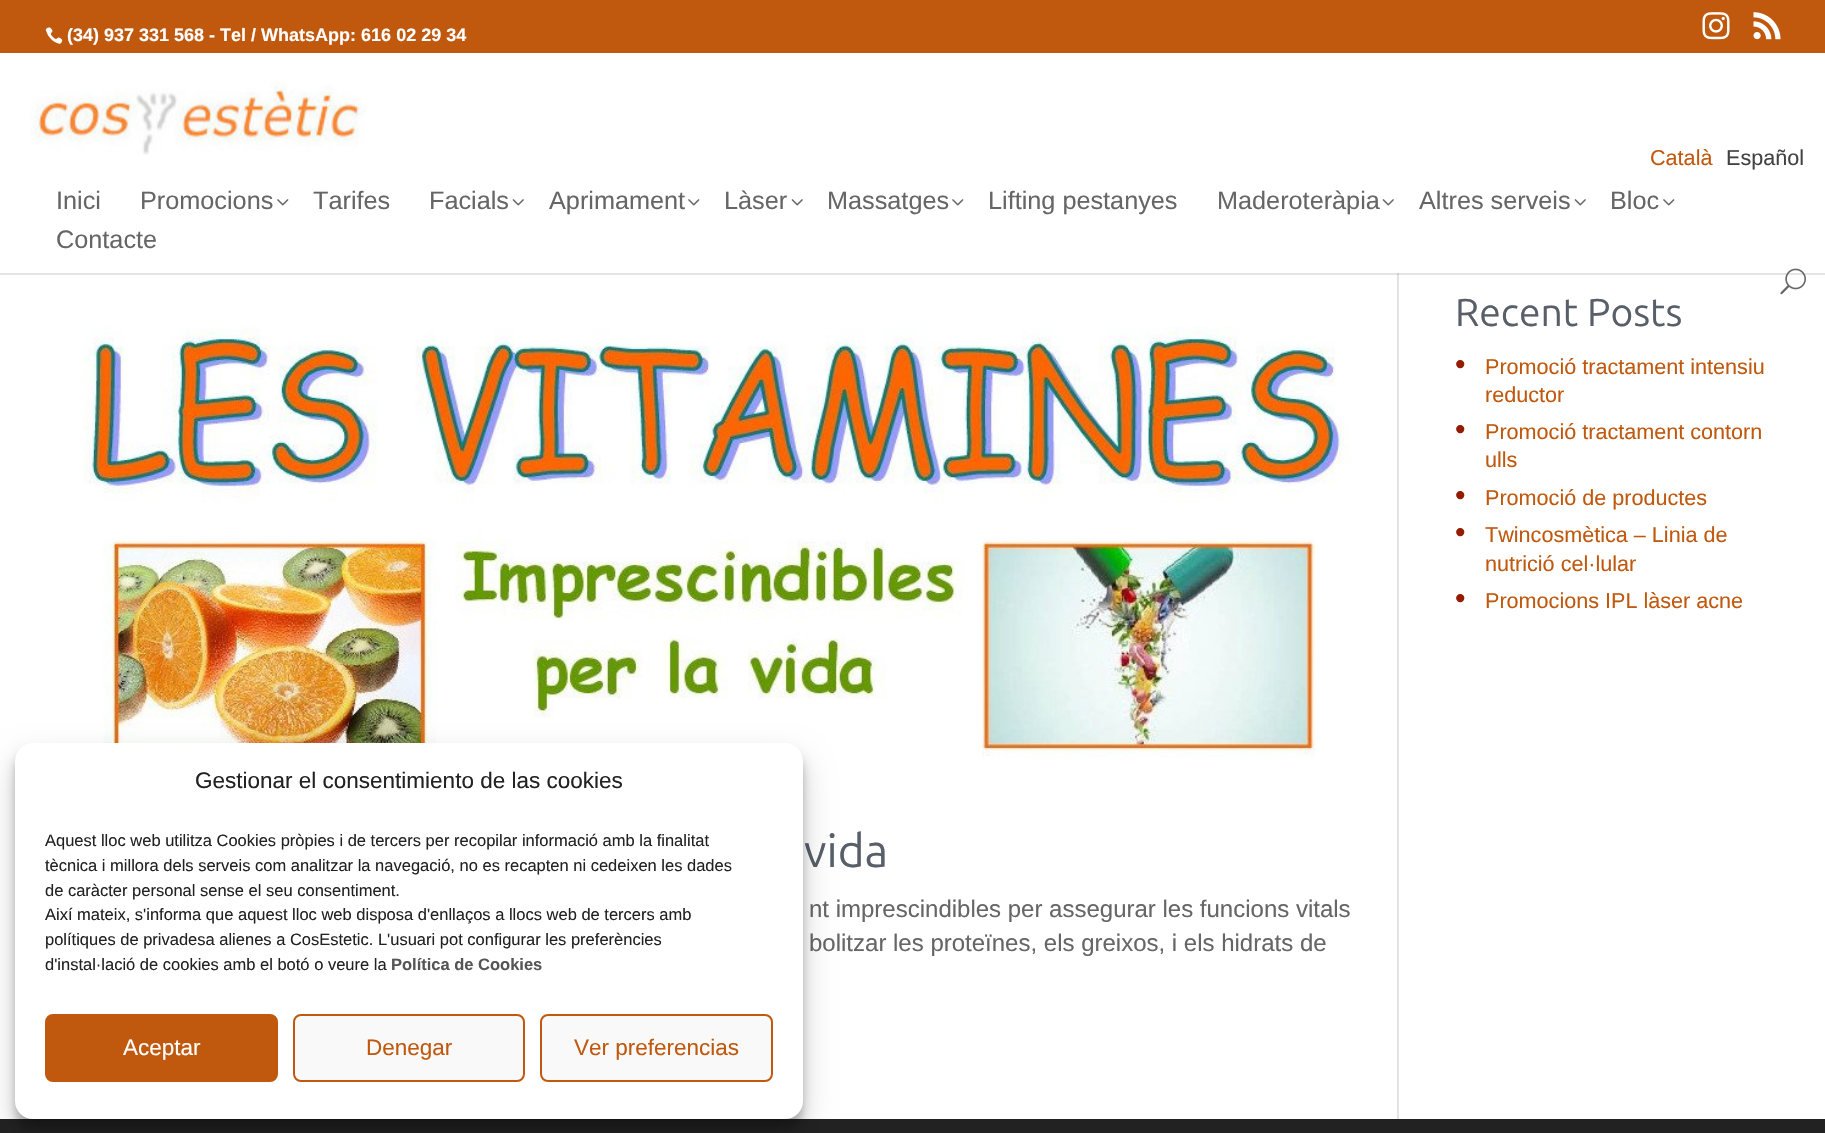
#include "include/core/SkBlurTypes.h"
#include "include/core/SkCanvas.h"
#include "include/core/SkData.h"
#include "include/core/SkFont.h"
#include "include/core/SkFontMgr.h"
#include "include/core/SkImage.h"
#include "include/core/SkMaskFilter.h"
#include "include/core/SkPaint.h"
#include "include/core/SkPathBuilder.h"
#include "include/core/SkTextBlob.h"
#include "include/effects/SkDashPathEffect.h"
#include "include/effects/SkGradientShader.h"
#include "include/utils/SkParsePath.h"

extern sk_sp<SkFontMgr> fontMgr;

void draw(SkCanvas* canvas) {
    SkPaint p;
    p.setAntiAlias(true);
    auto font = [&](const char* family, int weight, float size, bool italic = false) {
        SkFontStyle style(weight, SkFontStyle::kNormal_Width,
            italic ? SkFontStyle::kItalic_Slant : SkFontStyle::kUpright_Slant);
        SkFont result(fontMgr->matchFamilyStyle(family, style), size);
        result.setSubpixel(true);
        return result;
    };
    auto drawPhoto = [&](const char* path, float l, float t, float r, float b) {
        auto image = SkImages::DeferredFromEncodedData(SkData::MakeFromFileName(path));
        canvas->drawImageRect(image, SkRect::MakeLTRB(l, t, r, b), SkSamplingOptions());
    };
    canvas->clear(0xFFFFFFFF);
    p.setColor(0xFFC0580E);
    canvas->drawRect(SkRect::MakeLTRB(0, 0, 1825, 53), p);
    drawPhoto("media/1.png", 45, 27, 63, 44);
    auto font1 = font("Liberation Sans", 700, 18);
    p.setColor(0xFFFFFFFF);
    canvas->drawString("(34) 937 331 568 - Tel / WhatsApp: 616 02 29 34", 67, 41, font1, p);
    drawPhoto("media/2.png", 1702, 12, 1730, 40);
    drawPhoto("media/3.png", 1753, 12, 1781, 40);
    p.setColor(0xFFE2E2E2);
    canvas->drawRect(SkRect::MakeLTRB(1397, 273, 1399, 1119), p);
    p.setColor(0x1A000000);
    canvas->drawPath(SkPathBuilder().moveTo(0, 273).lineTo(0, 275).lineTo(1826, 275).lineTo(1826, 54).lineTo(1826, 273).close().detach(), p);
    drawPhoto("media/4.png", 30, 81, 366, 155);
    auto font2 = font("Liberation Sans", 400, 21.6f);
    p.setColor(0xFFC0580E);
    canvas->drawString("Català", 1650, 165, font2, p);
    p.setColor(0xFF424242);
    canvas->drawString("Español", 1726, 165, font2, p);
    auto font3 = font("Liberation Sans", 400, 25.25f);
    p.setColor(0xFF666666);
    canvas->drawString("Inici", 56, 209, font3, p);
    canvas->drawString("Promocions", 140, 209, font3, p);
    drawPhoto("media/5.png", 277, 199, 289, 206);
    canvas->drawString("Tarifes", 313, 209, font3, p);
    canvas->drawString("Facials", 429, 209, font3, p);
    drawPhoto("media/6.png", 512, 199, 524, 206);
    canvas->drawString("Aprimament", 549, 209, font3, p);
    drawPhoto("media/5.png", 688, 199, 700, 206);
    canvas->drawString("Làser", 724, 209, font3, p);
    drawPhoto("media/6.png", 791, 199, 803, 206);
    canvas->drawString("Massatges", 827, 209, font3, p);
    drawPhoto("media/5.png", 952, 199, 964, 206);
    canvas->drawString("Lifting pestanyes", 988, 209, font3, p);
    canvas->drawString("Maderoteràpia", 1217, 209, font3, p);
    drawPhoto("media/6.png", 1382, 199, 1394, 206);
    canvas->drawString("Altres serveis", 1419, 209, font3, p);
    drawPhoto("media/6.png", 1574, 199, 1586, 206);
    canvas->drawString("Bloc", 1610, 209, font3, p);
    drawPhoto("media/5.png", 1663, 199, 1675, 206);
    canvas->drawString("Contacte", 56, 248, font3, p);
    drawPhoto("media/7.png", 1780, 268, 1806, 295);
    auto font4 = font("Ubuntu", 400, 39);
    p.setColor(0xFF585F69);
    canvas->drawString("Recent Posts", 1455, 326, font4, p);
    auto font5 = font("Liberation Sans", 400, 30);
    p.setColor(0xFF931C02);
    canvas->drawString("•", 1455, 374, font5, p);
    p.setColor(0xFFC0580E);
    canvas->drawString("Promoció tractament intensiu", 1485, 374, font2, p);
    canvas->drawString("reductor", 1485, 402, font2, p);
    p.setColor(0xFF931C02);
    canvas->drawString("•", 1455, 439, font5, p);
    p.setColor(0xFFC0580E);
    canvas->drawString("Promoció tractament contorn", 1485, 439, font2, p);
    canvas->drawString("ulls", 1485, 467, font2, p);
    p.setColor(0xFF931C02);
    canvas->drawString("•", 1455, 505, font5, p);
    p.setColor(0xFFC0580E);
    canvas->drawString("Promoció de productes", 1485, 505, font2, p);
    p.setColor(0xFF931C02);
    canvas->drawString("•", 1455, 542, font5, p);
    p.setColor(0xFFC0580E);
    canvas->drawString("Twincosmètica – Linia de", 1485, 542, font2, p);
    canvas->drawString("nutrició cel·lular", 1485, 571, font2, p);
    p.setColor(0xFF931C02);
    canvas->drawString("•", 1455, 608, font5, p);
    p.setColor(0xFFC0580E);
    canvas->drawString("Promocions IPL làser acne", 1485, 608, font2, p);
    drawPhoto("media/8.png", 83, 327, 1351, 757);
    auto font6 = font("Ubuntu", 400, 46);
    p.setColor(0xFF585F69);
    canvas->drawString("vida", 804, 867, font6, p);
    auto font7 = font("Liberation Sans", 400, 24);
    p.setColor(0xFF666666);
    canvas->drawString("nt imprescindibles per assegurar les funcions vitals", 809, 917, font7, p);
    canvas->drawString("bolitzar les proteïnes, els greixos, i els hidrats de", 809, 951, font7, p);
    p.setColor(0xFF222222);
    canvas->drawRect(SkRect::MakeLTRB(0, 1119, 1825, 1133), p);
    p.setColor(0x3B000000);
    p.setMaskFilter(SkMaskFilter::MakeBlur(kNormal_SkBlurStyle, 4.5f));
    canvas->drawRoundRect(SkRect::MakeLTRB(15, 752, 803, 1128), 18, 18, p);
    p.setMaskFilter(nullptr);
    p.setColor(0x30000000);
    p.setMaskFilter(SkMaskFilter::MakeBlur(kNormal_SkBlurStyle, 15));
    canvas->drawRoundRect(SkRect::MakeLTRB(15, 758, 803, 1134), 18, 18, p);
    p.setMaskFilter(nullptr);
    p.setColor(0xFFFFFFFF);
    canvas->drawRoundRect(SkRect::MakeLTRB(15, 743, 803, 1119), 18, 18, p);
    auto font8 = font("Liberation Sans", 400, 22.5f);
    p.setColor(0xFF222222);
    canvas->drawString("Gestionar el consentimiento de las cookies", 195, 788, font8, p);
    auto font9 = font("Liberation Sans", 400, 16.5f);
    {
        const struct { const char* s; float x, y; } items[] = {
            {"Aquest lloc web utilitza Cookies pròpies i de tercers per recopilar informació amb la finalitat", 45, 846},
            {"tècnica i millora dels serveis com analitzar la navegació, no es recapten ni cedeixen les dades", 45, 871},
            {"de caràcter personal sense el seu consentiment.", 45, 896},
            {"Així mateix, s'informa que aquest lloc web disposa d'enllaços a llocs web de tercers amb", 45, 920},
            {"polítiques de privadesa alienes a CosEstetic. L'usuari pot configurar les preferències", 45, 945},
            {"d'instal·lació de cookies amb el botó o veure la", 45, 970},
        };
        for (auto [s, x, y] : items) {
            canvas->drawString(s, x, y, font9, p);
        }
    }
    auto font10 = font("Liberation Sans", 700, 16.5f);
    p.setColor(0xFF555555);
    canvas->drawString("Política de Cookies", 391, 970, font10, p);
    p.setColor(0xFFC0580E);
    canvas->drawRoundRect(SkRect::MakeLTRB(46, 1015, 277, 1081), 7, 7, p);
    p.setStyle(SkPaint::kStroke_Style);
    p.setStrokeWidth(2);
    canvas->drawRoundRect(SkRect::MakeLTRB(46, 1015, 277, 1081), 7, 7, p);
    p.setStyle(SkPaint::kFill_Style);
    p.setColor(0xFFFFFFFF);
    canvas->drawString("Aceptar", 123, 1055, font8, p);
    p.setColor(0xFFF9F9F9);
    canvas->drawRoundRect(SkRect::MakeLTRB(294, 1015, 524, 1081), 7, 7, p);
    p.setStyle(SkPaint::kStroke_Style);
    p.setColor(0xFFC0580E);
    canvas->drawRoundRect(SkRect::MakeLTRB(294, 1015, 524, 1081), 7, 7, p);
    p.setStyle(SkPaint::kFill_Style);
    canvas->drawString("Denegar", 366, 1055, font8, p);
    p.setColor(0xFFF9F9F9);
    canvas->drawRoundRect(SkRect::MakeLTRB(541, 1015, 772, 1081), 7, 7, p);
    p.setStyle(SkPaint::kStroke_Style);
    p.setColor(0xFFC0580E);
    canvas->drawRoundRect(SkRect::MakeLTRB(541, 1015, 772, 1081), 7, 7, p);
    p.setStyle(SkPaint::kFill_Style);
    canvas->drawString("Ver preferencias", 574, 1055, font8, p);
}
